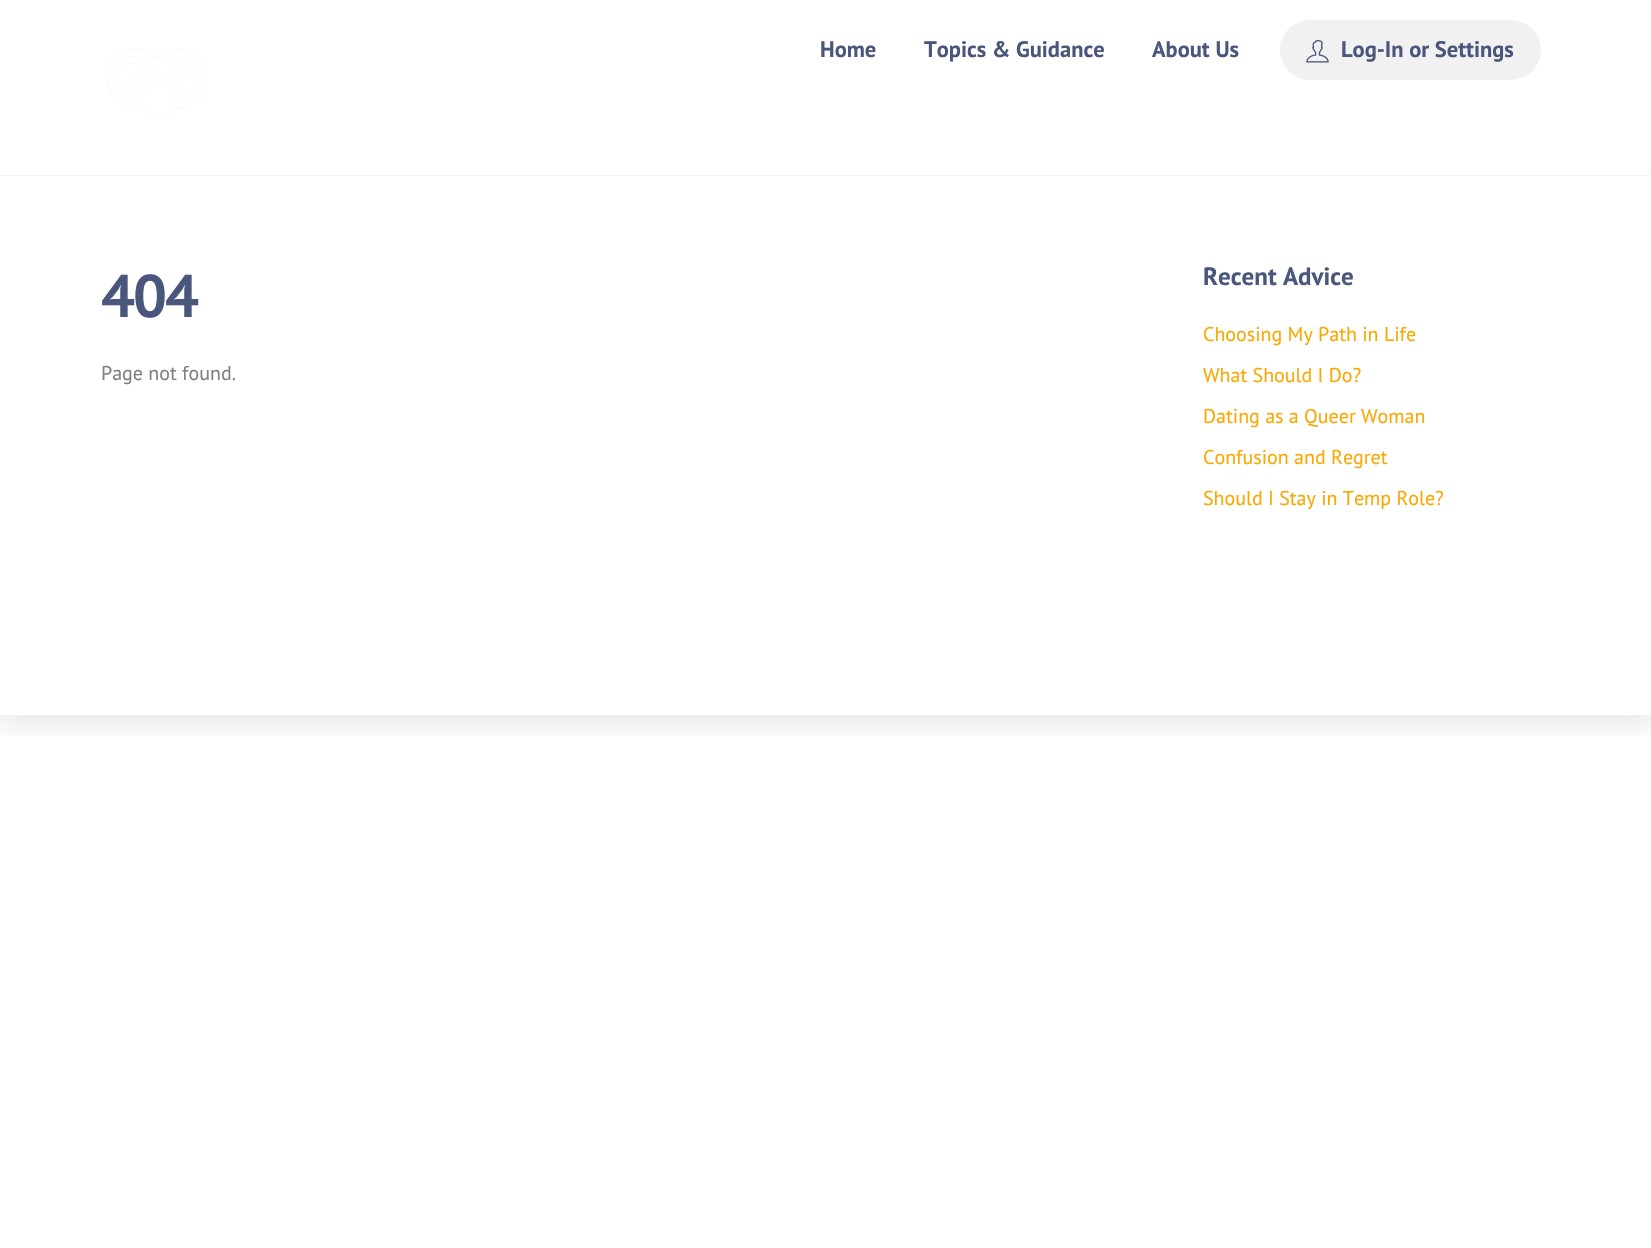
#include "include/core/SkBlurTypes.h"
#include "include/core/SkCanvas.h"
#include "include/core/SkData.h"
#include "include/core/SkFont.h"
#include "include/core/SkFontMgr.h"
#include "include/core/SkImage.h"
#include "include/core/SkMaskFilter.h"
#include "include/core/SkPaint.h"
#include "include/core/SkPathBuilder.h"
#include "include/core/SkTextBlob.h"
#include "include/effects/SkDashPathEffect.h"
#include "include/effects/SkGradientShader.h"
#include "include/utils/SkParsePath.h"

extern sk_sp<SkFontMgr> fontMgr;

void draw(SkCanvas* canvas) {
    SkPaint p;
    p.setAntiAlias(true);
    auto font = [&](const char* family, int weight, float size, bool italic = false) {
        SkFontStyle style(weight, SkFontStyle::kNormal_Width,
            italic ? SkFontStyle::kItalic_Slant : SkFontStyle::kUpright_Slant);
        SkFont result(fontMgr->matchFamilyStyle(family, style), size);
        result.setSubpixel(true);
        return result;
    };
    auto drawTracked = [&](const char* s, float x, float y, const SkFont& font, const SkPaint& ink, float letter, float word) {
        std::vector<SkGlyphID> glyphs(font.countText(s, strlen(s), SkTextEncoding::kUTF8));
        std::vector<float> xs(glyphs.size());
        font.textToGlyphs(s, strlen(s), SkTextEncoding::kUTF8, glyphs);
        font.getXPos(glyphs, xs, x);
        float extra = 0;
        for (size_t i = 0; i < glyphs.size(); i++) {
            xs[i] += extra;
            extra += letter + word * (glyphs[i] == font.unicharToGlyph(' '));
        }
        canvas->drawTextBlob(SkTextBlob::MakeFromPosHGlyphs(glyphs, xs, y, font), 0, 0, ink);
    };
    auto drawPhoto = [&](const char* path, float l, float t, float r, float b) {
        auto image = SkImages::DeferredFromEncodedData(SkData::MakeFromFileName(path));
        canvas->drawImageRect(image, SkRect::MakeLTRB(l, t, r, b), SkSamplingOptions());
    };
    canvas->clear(0xFFFFFFFF);
    canvas->save();
    canvas->clipRect(SkRect::MakeLTRB(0, 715, 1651, 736));
    p.setColor(0x1A000000);
    p.setMaskFilter(SkMaskFilter::MakeBlur(kNormal_SkBlurStyle, 15.5f));
    canvas->drawRect(SkRect::MakeLTRB(-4, 176, 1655, 723), p);
    p.setMaskFilter(nullptr);
    canvas->restore();
    p.setColor(0xFFFFFFFF);
    canvas->drawRect(SkRect::MakeLTRB(0, 156, 1651, 175), p);
    p.setColor(0xFFF2F2F2);
    canvas->drawRect(SkRect::MakeLTRB(0, 175, 1651, 176), p);
    drawPhoto("media/1.png", 107, 49, 208, 116);
    auto font1 = font("PT Sans", 700, 22.5f);
    p.setColor(0xFF4B567D);
    {
        const struct { const char* s; float x, y; } items[] = {
            {"Home", 820, 57},
            {"Topics & Guidance", 924, 57},
            {"About Us", 1152, 57},
        };
        for (auto [s, x, y] : items) {
            canvas->drawString(s, x, y, font1, p);
        }
    }
    p.setColor(0xFFF1F1F1);
    canvas->drawRoundRect(SkRect::MakeLTRB(1280, 20, 1541, 80), 30, 30, p);
    drawPhoto("media/2.png", 1306, 40, 1329, 63);
    p.setColor(0xFF4B567D);
    canvas->drawString("Log-In or Settings", 1341, 57, font1, p);
    auto font2 = font("PT Sans", 700, 60);
    drawTracked("404", 101, 317, font2, p, -2, 0);
    auto font3 = font("PT Sans", 400, 20);
    p.setColor(0xFF808080);
    canvas->drawString("Page not found.", 101, 380, font3, p);
    auto font4 = font("PT Sans", 700, 25);
    p.setColor(0xFF4B567D);
    canvas->drawString("Recent Advice", 1203, 285, font4, p);
    p.setColor(0xFFFBA700);
    {
        const struct { const char* s; float x, y; } items[] = {
            {"Choosing My Path in Life", 1203, 341},
            {"What Should I Do?", 1203, 382},
            {"Dating as a Queer Woman", 1203, 423},
            {"Confusion and Regret", 1203, 464},
            {"Should I Stay in Temp Role?", 1203, 505},
        };
        for (auto [s, x, y] : items) {
            canvas->drawString(s, x, y, font3, p);
        }
    }
}
